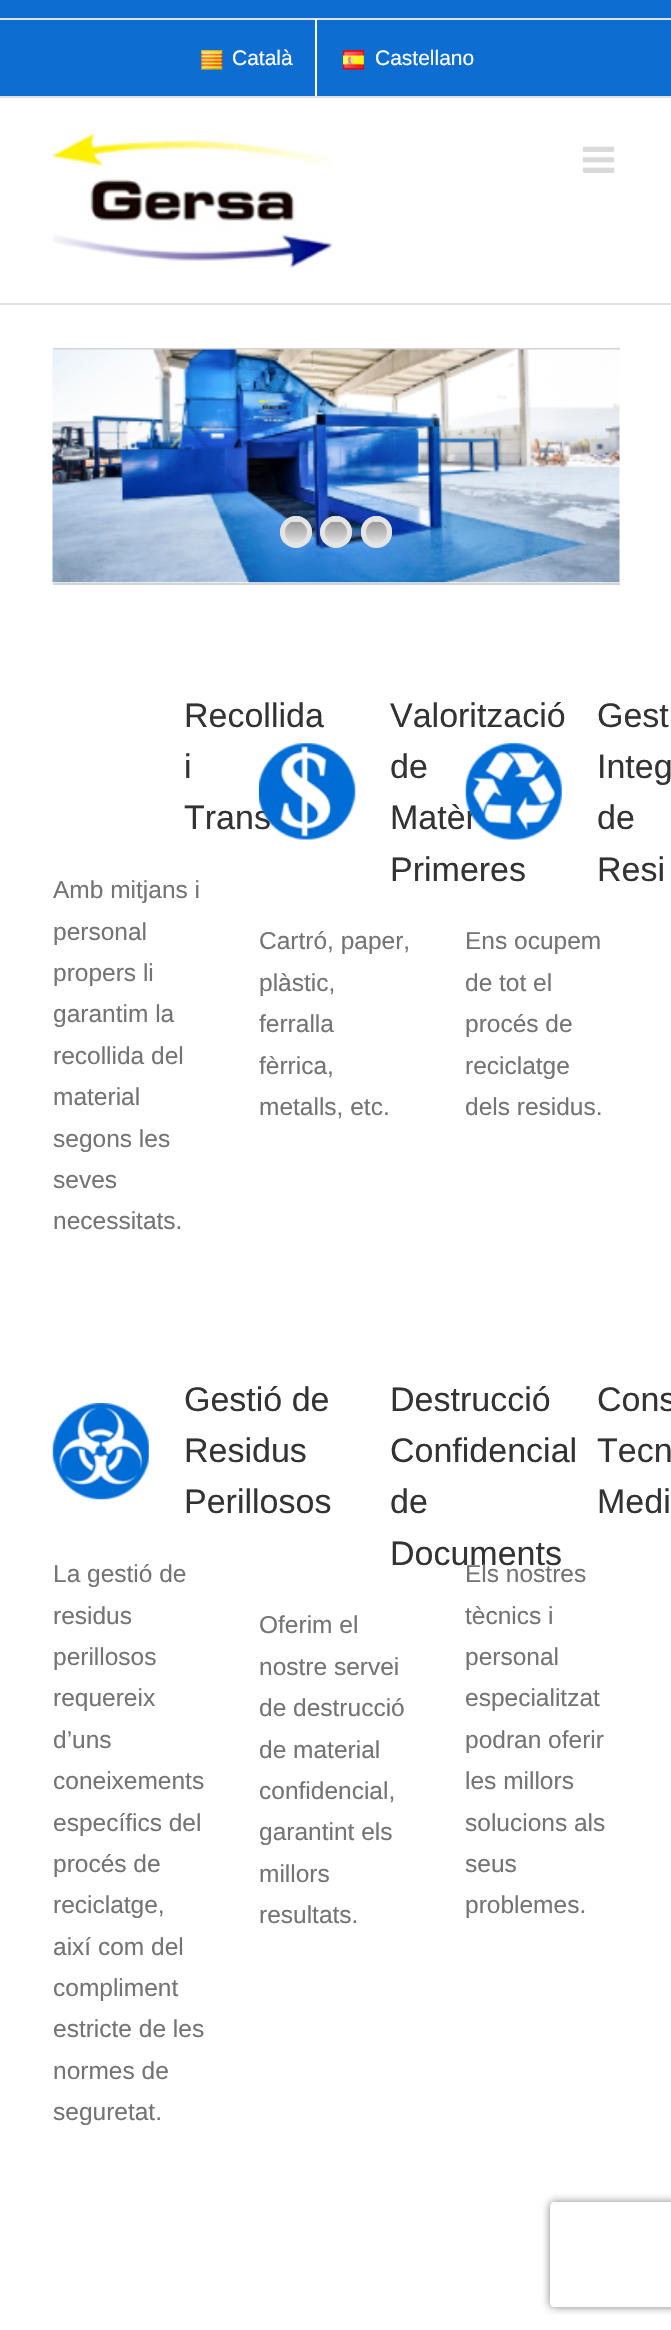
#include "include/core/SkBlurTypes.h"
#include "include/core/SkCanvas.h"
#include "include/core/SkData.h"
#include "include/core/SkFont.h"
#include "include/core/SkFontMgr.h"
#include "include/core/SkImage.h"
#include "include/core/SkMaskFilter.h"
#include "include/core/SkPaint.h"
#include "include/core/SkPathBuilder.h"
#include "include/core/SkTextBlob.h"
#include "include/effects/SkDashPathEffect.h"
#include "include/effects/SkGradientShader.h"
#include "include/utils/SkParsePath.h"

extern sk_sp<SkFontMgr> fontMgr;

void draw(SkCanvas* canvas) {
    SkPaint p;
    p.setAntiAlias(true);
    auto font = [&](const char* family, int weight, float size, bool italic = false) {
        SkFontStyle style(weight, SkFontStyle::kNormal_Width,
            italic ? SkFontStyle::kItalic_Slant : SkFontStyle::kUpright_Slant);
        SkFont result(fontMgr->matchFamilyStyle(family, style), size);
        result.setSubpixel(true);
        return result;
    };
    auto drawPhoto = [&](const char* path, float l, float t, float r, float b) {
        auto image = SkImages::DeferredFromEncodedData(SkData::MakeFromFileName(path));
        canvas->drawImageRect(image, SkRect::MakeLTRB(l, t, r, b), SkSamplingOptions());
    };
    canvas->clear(0xFFFFFFFF);
    {
        const struct { float l, t, r, b; SkColor color; } items[] = {
            {0, 0, 671, 96, 0xFF0D6DD1},
            {0, 96, 671, 98, 0xFFE1E1E1},
            {0, 18, 671, 20, 0xFFE1E1E1},
        };
        for (auto [l, t, r, b, color] : items) {
            p.setColor(color);
            canvas->drawRect(SkRect::MakeLTRB(l, t, r, b), p);
        }
    }
    drawPhoto("media/1.png", 201, 50, 223, 70);
    auto font1 = font("Liberation Sans", 400, 21);
    p.setColor(0xFFFFFFFF);
    canvas->drawString("Català", 232, 65, font1, p);
    canvas->drawRect(SkRect::MakeLTRB(315, 19, 317, 96), p);
    drawPhoto("media/2.png", 343, 50, 364, 70);
    canvas->drawString("Castellano", 375, 65, font1, p);
    p.setColor(0xFFE1E1E1);
    canvas->drawRect(SkRect::MakeLTRB(0, 303, 671, 305), p);
    drawPhoto("media/3.png", 52, 132, 333, 268);
    drawPhoto("media/4.png", 582, 146, 615, 173);
    p.setColor(0xFFD2D3D4);
    canvas->drawRect(SkRect::MakeLTRB(53, 348, 620, 350), p);
    canvas->drawRect(SkRect::MakeLTRB(53, 583, 620, 585), p);
    drawPhoto("media/5.png", 52, 349, 620, 583);
    canvas->save();
    canvas->clipPath(SkPathBuilder().moveTo(296, 516).cubicTo(305, 516, 312, 523, 312, 532).cubicTo(312, 541, 305, 548, 296, 548).cubicTo(287, 548, 280, 541, 280, 532).cubicTo(280, 523, 287, 516, 296, 516).close().detach(), true);
    {
        const SkColor colors[] = {0xFF999999, 0xFFE1E1E1};
        const float stops[] = {0, 1};
        const SkPoint ends[] = {{296, 501}, {296, 522}};
        p.setShader(SkGradientShader::MakeLinear(ends, colors, stops, 2, SkTileMode::kClamp));
        p.setAlpha(255);
    }
    canvas->drawRect(SkRect::MakeLTRB(280, 516, 312, 522), p);
    {
        const SkColor colors[] = {0xFF999999, 0xFFE1E1E1};
        const float stops[] = {0, 1};
        const SkPoint ends[] = {{296, 522}, {296, 543}};
        p.setShader(SkGradientShader::MakeLinear(ends, colors, stops, 2, SkTileMode::kClamp));
        p.setAlpha(255);
    }
    canvas->drawRect(SkRect::MakeLTRB(280, 522, 312, 543), p);
    canvas->restore();
    p.setStyle(SkPaint::kStroke_Style);
    p.setStrokeWidth(5);
    p.setShader(nullptr);
    p.setColor(0xFFE5E5E5);
    canvas->drawCircle(296, 532, 13.5f, p);
    canvas->save();
    canvas->clipPath(SkPathBuilder().moveTo(336, 516).cubicTo(345, 516, 352, 523, 352, 532).cubicTo(352, 541, 345, 548, 336, 548).cubicTo(327, 548, 320, 541, 320, 532).cubicTo(320, 523, 327, 516, 336, 516).close().detach(), true);
    p.setStyle(SkPaint::kFill_Style);
    {
        const SkColor colors[] = {0xFF999999, 0xFFE1E1E1};
        const float stops[] = {0, 1};
        const SkPoint ends[] = {{336, 501}, {336, 522}};
        p.setShader(SkGradientShader::MakeLinear(ends, colors, stops, 2, SkTileMode::kClamp));
        p.setAlpha(255);
    }
    canvas->drawRect(SkRect::MakeLTRB(320, 516, 352, 522), p);
    {
        const SkColor colors[] = {0xFF999999, 0xFFE1E1E1};
        const float stops[] = {0, 1};
        const SkPoint ends[] = {{336, 522}, {336, 543}};
        p.setShader(SkGradientShader::MakeLinear(ends, colors, stops, 2, SkTileMode::kClamp));
        p.setAlpha(255);
    }
    canvas->drawRect(SkRect::MakeLTRB(320, 522, 352, 543), p);
    canvas->restore();
    p.setStyle(SkPaint::kStroke_Style);
    p.setShader(nullptr);
    p.setColor(0xFFE5E5E5);
    canvas->drawCircle(336, 532, 13.5f, p);
    canvas->save();
    canvas->clipPath(SkPathBuilder().moveTo(376.5f, 516).cubicTo(385, 516, 392, 523, 392, 531.5f).lineTo(392, 532.5f).cubicTo(392, 541, 385, 548, 376.5f, 548).cubicTo(368, 548, 361, 541, 361, 532.5f).lineTo(361, 531.5f).cubicTo(361, 523, 368, 516, 376.5f, 516).close().detach(), true);
    p.setStyle(SkPaint::kFill_Style);
    {
        const SkColor colors[] = {0xFF999999, 0xFFE1E1E1};
        const float stops[] = {0, 1};
        const SkPoint ends[] = {{376, 501}, {376, 522}};
        p.setShader(SkGradientShader::MakeLinear(ends, colors, stops, 2, SkTileMode::kClamp));
        p.setAlpha(255);
    }
    canvas->drawRect(SkRect::MakeLTRB(361, 516, 392, 522), p);
    {
        const SkColor colors[] = {0xFF999999, 0xFFE1E1E1};
        const float stops[] = {0, 1};
        const SkPoint ends[] = {{376, 522}, {376, 543}};
        p.setShader(SkGradientShader::MakeLinear(ends, colors, stops, 2, SkTileMode::kClamp));
        p.setAlpha(255);
    }
    canvas->drawRect(SkRect::MakeLTRB(361, 522, 392, 543), p);
    canvas->restore();
    p.setStyle(SkPaint::kStroke_Style);
    p.setShader(nullptr);
    p.setColor(0xFFE5E5E5);
    canvas->drawRoundRect(SkRect::MakeLTRB(363.5f, 518.5f, 389.5f, 545.5f), 13, 13, p);
    auto font2 = font("Liberation Sans", 400, 34);
    p.setStyle(SkPaint::kFill_Style);
    p.setColor(0xFF333333);
    {
        const struct { const char* s; float x, y; } items[] = {
            {"Recollida", 184, 727},
            {"i", 184, 778},
            {"Trans", 184, 829},
        };
        for (auto [s, x, y] : items) {
            canvas->drawString(s, x, y, font2, p);
        }
    }
    auto font3 = font("Liberation Sans", 400, 24.5f);
    p.setColor(0xFF747474);
    {
        const struct { const char* s; float x, y; } items[] = {
            {"Amb mitjans i", 53, 898},
            {"personal", 53, 940},
            {"propers li", 53, 981},
            {"garantim la", 53, 1022},
            {"recollida del", 53, 1064},
            {"material", 53, 1105},
            {"segons les", 53, 1147},
            {"seves", 53, 1188},
            {"necessitats.", 53, 1229},
        };
        for (auto [s, x, y] : items) {
            canvas->drawString(s, x, y, font3, p);
        }
    }
    drawPhoto("media/6.png", 259, 743, 356, 840);
    p.setColor(0xFF333333);
    {
        const struct { const char* s; float x, y; } items[] = {
            {"Valorització", 390, 727},
            {"de", 390, 778},
            {"Matèr", 390, 829},
            {"Primeres", 390, 881},
        };
        for (auto [s, x, y] : items) {
            canvas->drawString(s, x, y, font2, p);
        }
    }
    p.setColor(0xFF747474);
    {
        const struct { const char* s; float x, y; } items[] = {
            {"Cartró, paper,", 259, 949},
            {"plàstic,", 259, 991},
            {"ferralla", 259, 1032},
            {"fèrrica,", 259, 1074},
            {"metalls, etc.", 259, 1115},
        };
        for (auto [s, x, y] : items) {
            canvas->drawString(s, x, y, font3, p);
        }
    }
    drawPhoto("media/7.png", 465, 743, 562, 840);
    p.setColor(0xFF333333);
    {
        const struct { const char* s; float x, y; } items[] = {
            {"Gest", 597, 727},
            {"Integ", 597, 778},
            {"de", 597, 829},
            {"Resi", 597, 881},
        };
        for (auto [s, x, y] : items) {
            canvas->drawString(s, x, y, font2, p);
        }
    }
    p.setColor(0xFF747474);
    {
        const struct { const char* s; float x, y; } items[] = {
            {"Ens ocupem", 465, 949},
            {"de tot el", 465, 991},
            {"procés de", 465, 1032},
            {"reciclatge", 465, 1074},
            {"dels residus.", 465, 1115},
        };
        for (auto [s, x, y] : items) {
            canvas->drawString(s, x, y, font3, p);
        }
    }
    drawPhoto("media/8.png", 52, 1403, 149, 1500);
    p.setColor(0xFF333333);
    {
        const struct { const char* s; float x, y; } items[] = {
            {"Gestió de", 184, 1411},
            {"Residus", 184, 1462},
            {"Perillosos", 184, 1513},
        };
        for (auto [s, x, y] : items) {
            canvas->drawString(s, x, y, font2, p);
        }
    }
    p.setColor(0xFF747474);
    {
        const struct { const char* s; float x, y; } items[] = {
            {"La gestió de", 53, 1582},
            {"residus", 53, 1624},
            {"perillosos", 53, 1665},
            {"requereix", 53, 1706},
            {"d’uns", 53, 1748},
            {"coneixements", 53, 1789},
            {"específics del", 53, 1831},
            {"procés de", 53, 1872},
            {"reciclatge,", 53, 1913},
            {"així com del", 53, 1955},
            {"compliment", 53, 1996},
            {"estricte de les", 53, 2037},
            {"normes de", 53, 2079},
            {"seguretat.", 53, 2120},
        };
        for (auto [s, x, y] : items) {
            canvas->drawString(s, x, y, font3, p);
        }
    }
    p.setColor(0xFF333333);
    {
        const struct { const char* s; float x, y; } items[] = {
            {"Destrucció", 390, 1411},
            {"Confidencial", 390, 1462},
            {"de", 390, 1513},
            {"Documents", 390, 1565},
        };
        for (auto [s, x, y] : items) {
            canvas->drawString(s, x, y, font2, p);
        }
    }
    p.setColor(0xFF747474);
    {
        const struct { const char* s; float x, y; } items[] = {
            {"Oferim el", 259, 1633},
            {"nostre servei", 259, 1675},
            {"de destrucció", 259, 1716},
            {"de material", 259, 1758},
            {"confidencial,", 259, 1799},
            {"garantint els", 259, 1840},
            {"millors", 259, 1882},
            {"resultats.", 259, 1923},
        };
        for (auto [s, x, y] : items) {
            canvas->drawString(s, x, y, font3, p);
        }
    }
    p.setColor(0xFF333333);
    {
        const struct { const char* s; float x, y; } items[] = {
            {"Cons", 597, 1411},
            {"Tecn", 597, 1462},
            {"Medi", 597, 1513},
        };
        for (auto [s, x, y] : items) {
            canvas->drawString(s, x, y, font2, p);
        }
    }
    p.setColor(0xFF747474);
    {
        const struct { const char* s; float x, y; } items[] = {
            {"Els nostres", 465, 1582},
            {"tècnics i", 465, 1624},
            {"personal", 465, 1665},
            {"especialitzat", 465, 1706},
            {"podran oferir", 465, 1748},
            {"les millors", 465, 1789},
            {"solucions als", 465, 1831},
            {"seus", 465, 1872},
            {"problemes.", 465, 1913},
        };
        for (auto [s, x, y] : items) {
            canvas->drawString(s, x, y, font3, p);
        }
    }
    canvas->save();
    canvas->clipPath(SkPathBuilder(SkPathFillType::kEvenOdd).moveTo(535, 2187).lineTo(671, 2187).lineTo(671, 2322).lineTo(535, 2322).close().moveTo(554, 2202).lineTo(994, 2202).cubicTo(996, 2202, 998, 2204, 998, 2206).lineTo(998, 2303).cubicTo(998, 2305, 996, 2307, 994, 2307).lineTo(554, 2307).cubicTo(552, 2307, 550, 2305, 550, 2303).lineTo(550, 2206).cubicTo(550, 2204, 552, 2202, 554, 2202).close().detach(), true);
    p.setColor(0xFF808080);
    p.setMaskFilter(SkMaskFilter::MakeBlur(kNormal_SkBlurStyle, 4.5f));
    canvas->drawRoundRect(SkRect::MakeLTRB(550, 2202, 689, 2307), 4, 4, p);
    p.setMaskFilter(nullptr);
    canvas->restore();
}
